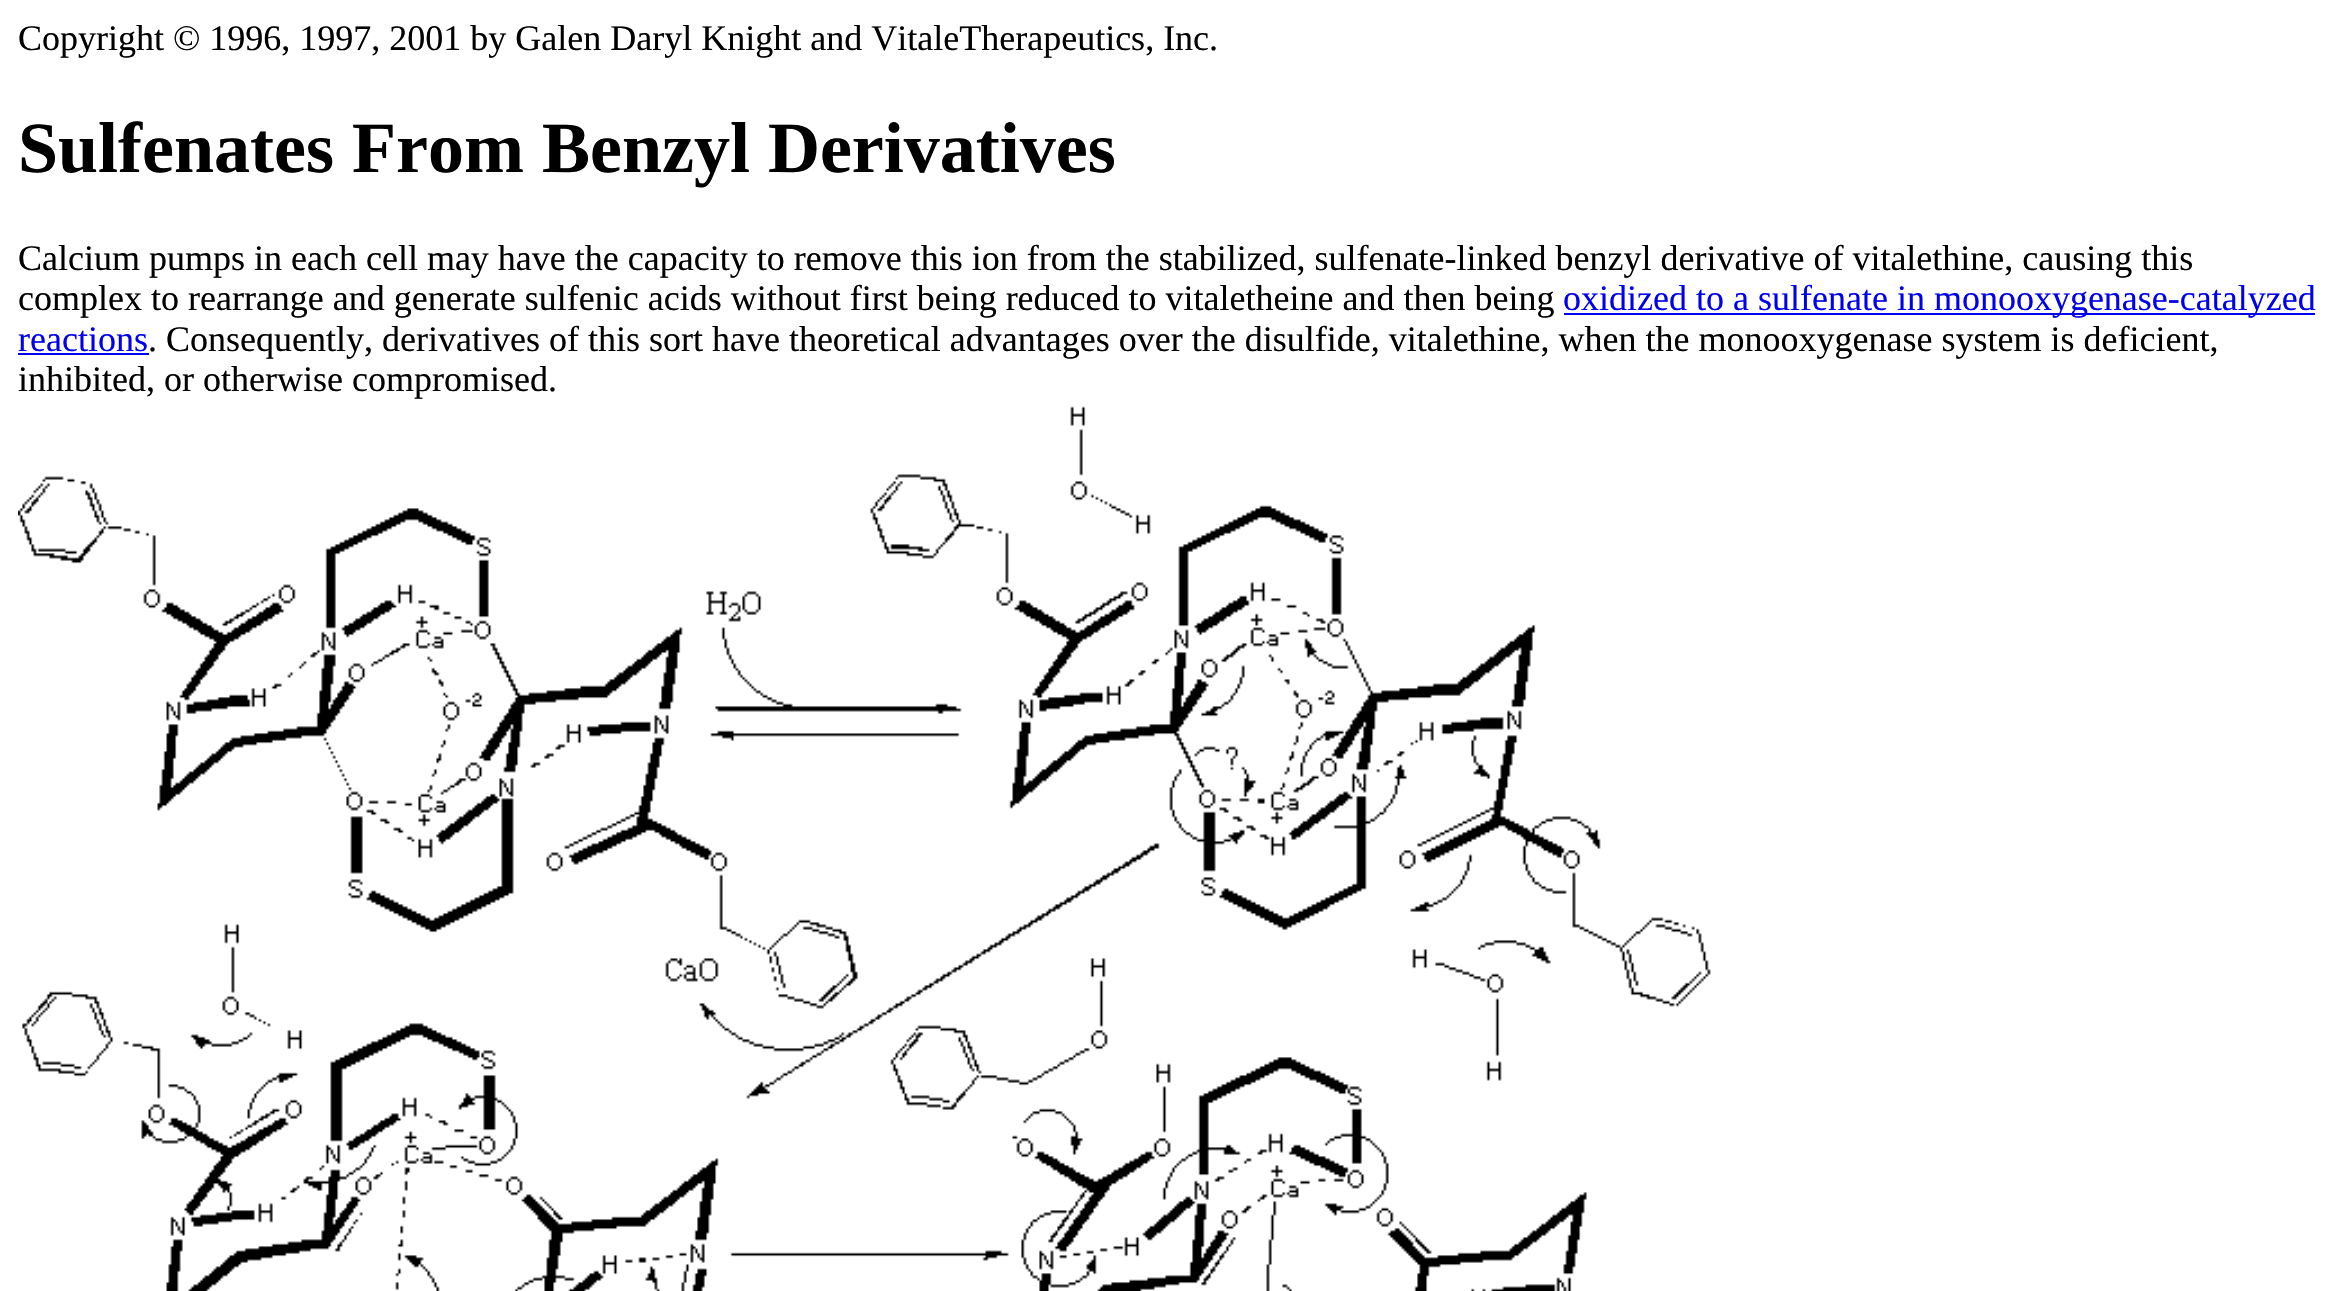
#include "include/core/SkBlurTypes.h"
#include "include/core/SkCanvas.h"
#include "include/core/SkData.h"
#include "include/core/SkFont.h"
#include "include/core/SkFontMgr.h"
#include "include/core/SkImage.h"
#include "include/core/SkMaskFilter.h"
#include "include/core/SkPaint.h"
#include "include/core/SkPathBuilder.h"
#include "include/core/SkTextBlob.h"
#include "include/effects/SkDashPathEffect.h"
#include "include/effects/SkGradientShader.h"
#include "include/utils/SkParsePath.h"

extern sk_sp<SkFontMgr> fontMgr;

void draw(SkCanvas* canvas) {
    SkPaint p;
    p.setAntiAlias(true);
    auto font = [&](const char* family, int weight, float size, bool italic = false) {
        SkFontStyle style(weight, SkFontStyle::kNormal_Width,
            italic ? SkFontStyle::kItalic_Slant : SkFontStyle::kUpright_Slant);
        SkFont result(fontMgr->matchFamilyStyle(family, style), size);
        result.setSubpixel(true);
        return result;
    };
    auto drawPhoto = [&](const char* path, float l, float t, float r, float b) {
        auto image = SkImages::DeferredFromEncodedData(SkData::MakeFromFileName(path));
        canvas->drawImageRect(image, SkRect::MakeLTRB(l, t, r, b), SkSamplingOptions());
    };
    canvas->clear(0xFFFFFFFF);
    auto font1 = font("Liberation Serif", 400, 36);
    p.setColor(0xFF000000);
    canvas->drawString("Copyright © 1996, 1997, 2001 by Galen Daryl Knight and VitaleTherapeutics, Inc.", 18, 50, font1, p);
    auto font2 = font("Liberation Serif", 700, 72);
    canvas->drawString("Sulfenates From Benzyl Derivatives", 18, 172, font2, p);
    canvas->drawString("Calcium pumps in each cell may have the capacity to remove this ion from the stabilized, sulfenate-linked benzyl derivative of vitalethine, causing this", 18, 270, font1, p);
    canvas->drawString("complex to rearrange and generate sulfenic acids without first being reduced to vitaletheine and then being", 18, 310, font1, p);
    p.setColor(0xFF0000EE);
    canvas->drawRect(SkRect::MakeLTRB(1564, 313, 2315, 315), p);
    canvas->drawString("oxidized to a sulfenate in monooxygenase-catalyzed", 1563, 310, font1, p);
    canvas->drawString("reactions", 18, 351, font1, p);
    canvas->drawRect(SkRect::MakeLTRB(18, 353, 149, 355), p);
    p.setColor(0xFF000000);
    canvas->drawString(". Consequently, derivatives of this sort have theoretical advantages over the disulfide, vitalethine, when the monooxygenase system is deficient,", 148, 351, font1, p);
    canvas->drawString("inhibited, or otherwise compromised.", 18, 391, font1, p);
    drawPhoto("media/1.png", 18, 406, 1711, 1291);
}
